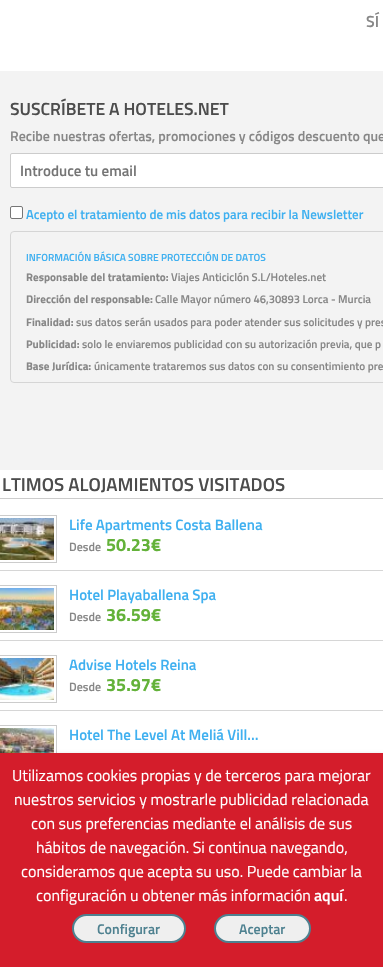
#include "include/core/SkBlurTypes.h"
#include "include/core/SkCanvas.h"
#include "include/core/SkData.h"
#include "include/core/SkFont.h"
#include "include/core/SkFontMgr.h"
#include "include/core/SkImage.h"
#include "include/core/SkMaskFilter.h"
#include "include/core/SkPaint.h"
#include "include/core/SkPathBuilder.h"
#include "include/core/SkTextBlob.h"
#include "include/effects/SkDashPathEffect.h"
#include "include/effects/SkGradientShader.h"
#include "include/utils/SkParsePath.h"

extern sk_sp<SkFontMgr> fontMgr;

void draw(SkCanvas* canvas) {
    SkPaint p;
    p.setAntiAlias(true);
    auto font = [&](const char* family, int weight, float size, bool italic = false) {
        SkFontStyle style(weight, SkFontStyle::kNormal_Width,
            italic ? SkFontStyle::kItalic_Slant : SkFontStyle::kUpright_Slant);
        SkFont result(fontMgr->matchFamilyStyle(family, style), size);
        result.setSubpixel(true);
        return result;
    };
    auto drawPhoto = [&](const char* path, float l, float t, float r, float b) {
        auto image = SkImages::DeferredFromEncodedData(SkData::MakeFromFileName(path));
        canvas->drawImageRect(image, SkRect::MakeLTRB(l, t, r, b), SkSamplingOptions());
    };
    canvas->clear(0xFFFFFFFF);
    auto font1 = font("Titillium Web", 600, 16);
    p.setColor(0xFF878787);
    canvas->drawString("SÍ", 366, 27, font1, p);
    p.setColor(0xFFF3F3F3);
    canvas->drawRect(SkRect::MakeLTRB(0, 71, 383, 470), p);
    auto font2 = font("Titillium Web", 600, 17.6f);
    p.setColor(0xFF4C4C4C);
    canvas->drawString("SUSCRÍBETE A HOTELES.NET", 10, 115, font2, p);
    auto font3 = font("Titillium Web", 600, 14);
    p.setColor(0xFF878787);
    canvas->drawString("Recibe nuestras ofertas, promociones y códigos descuento que", 10, 141, font3, p);
    p.setColor(0xFFFFFFFF);
    canvas->drawRoundRect(SkRect::MakeLTRB(10.5f, 153.5f, 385.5f, 187.5f), 1.5f, 1.5f, p);
    p.setStyle(SkPaint::kStroke_Style);
    p.setStrokeWidth(1);
    p.setColor(0xFFCCCCCC);
    canvas->drawRoundRect(SkRect::MakeLTRB(10.5f, 153.5f, 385.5f, 187.5f), 1.5f, 1.5f, p);
    auto font4 = font("Titillium Web", 600, 15);
    p.setStyle(SkPaint::kFill_Style);
    p.setColor(0xFF757575);
    canvas->drawString("Introduce tu email", 20, 176, font4, p);
    p.setColor(0xFFFFFFFF);
    canvas->drawRoundRect(SkRect::MakeLTRB(10.5f, 206.5f, 22.5f, 218.5f), 1.5f, 1.5f, p);
    p.setStyle(SkPaint::kStroke_Style);
    p.setColor(0xFF767676);
    canvas->drawRoundRect(SkRect::MakeLTRB(10.5f, 206.5f, 22.5f, 218.5f), 1.5f, 1.5f, p);
    auto font5 = font("Titillium Web", 600, 13);
    p.setStyle(SkPaint::kFill_Style);
    p.setColor(0xFF3FB0F0);
    canvas->drawString("Acepto el tratamiento de mis datos para recibir la Newsletter", 26, 219, font5, p);
    p.setStyle(SkPaint::kStroke_Style);
    p.setColor(0xFFD5D5D5);
    canvas->drawRoundRect(SkRect::MakeLTRB(10.5f, 231.5f, 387.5f, 382.5f), 3.5f, 3.5f, p);
    auto font6 = font("Titillium Web", 600, 10.25f);
    p.setStyle(SkPaint::kFill_Style);
    p.setColor(0xFF3FB0F0);
    canvas->drawString("INFORMACIÓN BÁSICA SOBRE PROTECCIÓN DE DATOS", 26, 261, font6, p);
    auto font7 = font("Titillium Web", 700, 11.2f);
    p.setColor(0xFF878787);
    canvas->drawString("Responsable del tratamiento:", 26, 281, font7, p);
    auto font8 = font("Titillium Web", 600, 11.2f);
    canvas->drawString("Viajes Anticiclón S.L/Hoteles.net", 171, 281, font8, p);
    canvas->drawString("Dirección del responsable:", 26, 303, font7, p);
    canvas->drawString("Calle Mayor número 46,30893 Lorca - Murcia", 155, 303, font8, p);
    canvas->drawString("Finalidad:", 26, 326, font7, p);
    canvas->drawString("sus datos serán usados para poder atender sus solicitudes y pres", 76, 326, font8, p);
    canvas->drawString("Publicidad:", 26, 348, font7, p);
    canvas->drawString("solo le enviaremos publicidad con su autorización previa, que p", 82, 348, font8, p);
    canvas->drawString("Base Jurídica:", 26, 370, font7, p);
    canvas->drawString("únicamente trataremos sus datos con su consentimiento pre", 94, 370, font8, p);
    p.setColor(0xFFCCCCCC);
    canvas->drawRect(SkRect::MakeLTRB(0, 498, 383, 499), p);
    auto font9 = font("Titillium Web", 600, 18.75f);
    p.setColor(0xFF4C4C4C);
    canvas->drawString("LTIMOS ALOJAMIENTOS VISITADOS", 2, 491, font9, p);
    p.setColor(0xFFD6D6D6);
    canvas->drawRect(SkRect::MakeLTRB(0, 570, 383, 571), p);
    p.setStyle(SkPaint::kStroke_Style);
    p.setColor(0xFFCCCCCC);
    canvas->drawRect(SkRect::MakeLTRB(-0.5f, 515.5f, 56.5f, 562.5f), p);
    drawPhoto("media/1.png", 0, 518, 54, 560);
    p.setStyle(SkPaint::kFill_Style);
    p.setColor(0xFF3FB0F0);
    canvas->drawString("Life Apartments Costa Ballena", 69, 530, font4, p);
    auto font10 = font("Titillium Web", 600, 12);
    p.setColor(0xFF878787);
    canvas->drawString("Desde", 69, 551, font10, p);
    auto font11 = font("Titillium Web", 700, 18);
    p.setColor(0xFF63B239);
    canvas->drawString("50.23€", 106, 551, font11, p);
    p.setColor(0xFFD6D6D6);
    canvas->drawRect(SkRect::MakeLTRB(0, 640, 383, 641), p);
    p.setStyle(SkPaint::kStroke_Style);
    p.setColor(0xFFCCCCCC);
    canvas->drawRect(SkRect::MakeLTRB(-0.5f, 585.5f, 56.5f, 632.5f), p);
    drawPhoto("media/2.png", 0, 588, 54, 630);
    p.setStyle(SkPaint::kFill_Style);
    p.setColor(0xFF3FB0F0);
    canvas->drawString("Hotel Playaballena Spa", 69, 600, font4, p);
    p.setColor(0xFF878787);
    canvas->drawString("Desde", 69, 621, font10, p);
    p.setColor(0xFF63B239);
    canvas->drawString("36.59€", 106, 621, font11, p);
    p.setColor(0xFFD6D6D6);
    canvas->drawRect(SkRect::MakeLTRB(0, 710, 383, 711), p);
    p.setStyle(SkPaint::kStroke_Style);
    p.setColor(0xFFCCCCCC);
    canvas->drawRect(SkRect::MakeLTRB(-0.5f, 655.5f, 56.5f, 702.5f), p);
    drawPhoto("media/3.png", 0, 658, 54, 700);
    p.setStyle(SkPaint::kFill_Style);
    p.setColor(0xFF3FB0F0);
    canvas->drawString("Advise Hotels Reina", 69, 670, font4, p);
    p.setColor(0xFF878787);
    canvas->drawString("Desde", 69, 691, font10, p);
    p.setColor(0xFF63B239);
    canvas->drawString("35.97€", 106, 691, font11, p);
    p.setStyle(SkPaint::kStroke_Style);
    p.setColor(0xFFCCCCCC);
    canvas->drawRect(SkRect::MakeLTRB(-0.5f, 725.5f, 56.5f, 772.5f), p);
    drawPhoto("media/4.png", 0, 728, 54, 753);
    p.setStyle(SkPaint::kFill_Style);
    p.setColor(0xFF3FB0F0);
    canvas->drawString("Hotel The Level At Meliá Vill…", 69, 740, font4, p);
    p.setColor(0x4D000000);
    p.setMaskFilter(SkMaskFilter::MakeBlur(kNormal_SkBlurStyle, 2));
    canvas->drawRect(SkRect::MakeLTRB(0, 755, 383, 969), p);
    p.setMaskFilter(nullptr);
    p.setColor(0xFFD41D2B);
    canvas->drawRect(SkRect::MakeLTRB(0, 753, 383, 967), p);
    auto font12 = font("Titillium Web", 400, 16);
    p.setColor(0xFFFFFFFF);
    {
        const struct { const char* s; float x, y; } items[] = {
            {"Utilizamos cookies propias y de terceros para mejorar", 12, 781},
            {"nuestros servicios y mostrarle publicidad relacionada", 14, 805},
            {"con sus preferencias mediante el análisis de sus", 31, 829},
            {"hábitos de navegación. Si continua navegando,", 36, 853},
            {"consideramos que acepta su uso. Puede cambiar la", 21, 877},
            {"configuración u obtener más información", 36, 901},
        };
        for (auto [s, x, y] : items) {
            canvas->drawString(s, x, y, font12, p);
        }
    }
    canvas->drawString("aquí", 314, 901, font1, p);
    canvas->drawString(".", 344, 901, font12, p);
    p.setColor(0xFFEFEFEF);
    canvas->drawRoundRect(SkRect::MakeLTRB(73, 915, 185, 942), 13.5f, 13.5f, p);
    p.setStyle(SkPaint::kStroke_Style);
    p.setStrokeWidth(2);
    p.setColor(0xFF4E8190);
    canvas->drawRoundRect(SkRect::MakeLTRB(73, 915, 185, 942), 13.5f, 13.5f, p);
    p.setStyle(SkPaint::kFill_Style);
    canvas->drawString("Configurar", 97, 934, font3, p);
    p.setColor(0xFFEFEFEF);
    canvas->drawRoundRect(SkRect::MakeLTRB(215, 915, 310, 942), 13.5f, 13.5f, p);
    p.setStyle(SkPaint::kStroke_Style);
    p.setColor(0xFF4E8190);
    canvas->drawRoundRect(SkRect::MakeLTRB(215, 915, 310, 942), 13.5f, 13.5f, p);
    p.setStyle(SkPaint::kFill_Style);
    canvas->drawString("Aceptar", 239, 934, font3, p);
}
